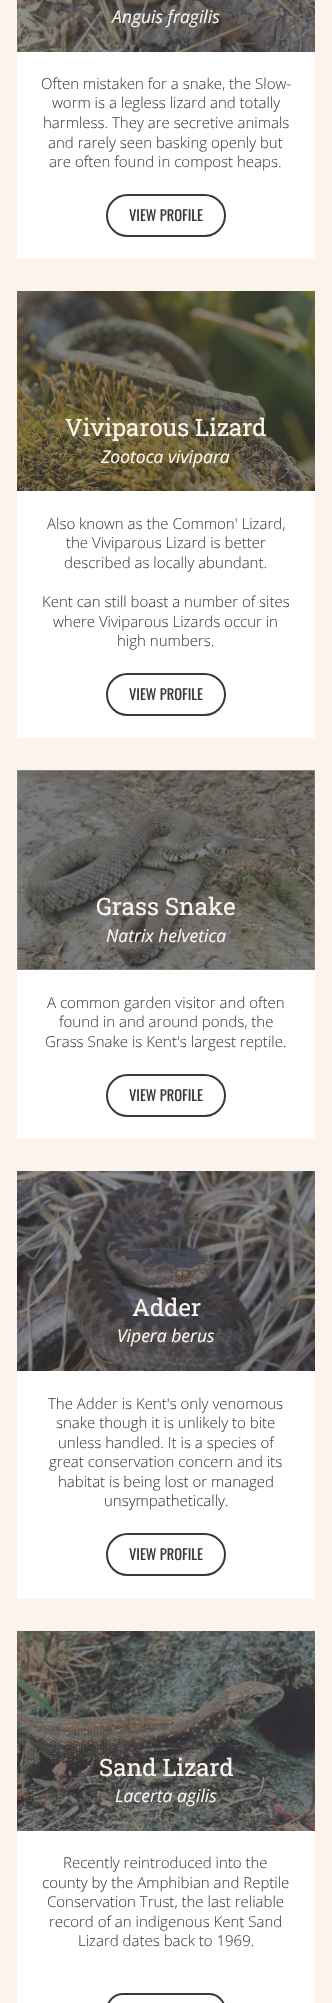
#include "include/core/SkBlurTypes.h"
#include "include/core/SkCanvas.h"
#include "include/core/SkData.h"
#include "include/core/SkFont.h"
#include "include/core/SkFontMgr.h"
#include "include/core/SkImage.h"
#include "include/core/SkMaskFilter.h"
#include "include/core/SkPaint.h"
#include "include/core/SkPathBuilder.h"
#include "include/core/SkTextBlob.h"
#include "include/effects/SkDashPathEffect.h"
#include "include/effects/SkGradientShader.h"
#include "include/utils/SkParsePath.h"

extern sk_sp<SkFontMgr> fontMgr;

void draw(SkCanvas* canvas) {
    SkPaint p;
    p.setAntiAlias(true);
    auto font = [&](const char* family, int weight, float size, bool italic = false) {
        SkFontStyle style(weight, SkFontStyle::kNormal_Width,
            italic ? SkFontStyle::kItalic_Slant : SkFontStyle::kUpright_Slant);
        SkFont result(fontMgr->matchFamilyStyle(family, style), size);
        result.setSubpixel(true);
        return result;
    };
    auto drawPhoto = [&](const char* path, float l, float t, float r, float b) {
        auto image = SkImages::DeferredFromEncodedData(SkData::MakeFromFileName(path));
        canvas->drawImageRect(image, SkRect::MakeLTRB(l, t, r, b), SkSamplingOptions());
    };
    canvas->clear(0xFFFBF3EC);
    p.setColor(0xFFFFFFFF);
    canvas->drawRect(SkRect::MakeLTRB(17, 52, 315, 259), p);
    drawPhoto("media/1.png", 17, 0, 315, 52);
    auto font1 = font("Open Sans", 400, 17.5f, true);
    p.setColor(0xFFFBF3EC);
    canvas->drawString("Anguis fragilis", 112, 23, font1, p);
    auto font2 = font("Open Sans", 300, 15);
    p.setColor(0xFF494542);
    {
        const struct { const char* s; float x, y; } items[] = {
            {"Often mistaken for a snake, the Slow-", 41, 89},
            {"worm is a legless lizard and totally", 52, 108},
            {"harmless. They are secretive animals", 43, 128},
            {"and rarely seen basking openly but", 48, 148},
            {"are often found in compost heaps.", 49, 167},
        };
        for (auto [s, x, y] : items) {
            canvas->drawString(s, x, y, font2, p);
        }
    }
    p.setStyle(SkPaint::kStroke_Style);
    p.setStrokeWidth(2);
    p.setColor(0xFF3C363B);
    canvas->drawRoundRect(SkRect::MakeLTRB(107, 195, 225, 236), 20.5f, 20.5f, p);
    auto font3 = font("Oswald", 400, 14.5f);
    p.setStyle(SkPaint::kFill_Style);
    canvas->drawString("VIEW PROFILE", 129, 221, font3, p);
    p.setColor(0xFFFFFFFF);
    canvas->drawRect(SkRect::MakeLTRB(17, 491, 315, 738), p);
    drawPhoto("media/2.png", 17, 291, 315, 491);
    auto font4 = font("Roboto Slab", 400, 24);
    p.setColor(0xFFFBF3EC);
    canvas->drawString("Viviparous Lizard", 65, 436, font4, p);
    canvas->drawString("Zootoca vivipara", 101, 463, font1, p);
    p.setColor(0xFF494542);
    {
        const struct { const char* s; float x, y; } items[] = {
            {"Also known as the Common' Lizard,", 47, 529},
            {"the Viviparous Lizard is better", 66, 548},
            {"described as locally abundant.", 64, 568},
            {"Kent can still boast a number of sites", 42, 607},
            {"where Viviparous Lizards occur in", 53, 627},
            {"high numbers.", 117, 646},
        };
        for (auto [s, x, y] : items) {
            canvas->drawString(s, x, y, font2, p);
        }
    }
    p.setStyle(SkPaint::kStroke_Style);
    p.setColor(0xFF3C363B);
    canvas->drawRoundRect(SkRect::MakeLTRB(107, 674, 225, 715), 20.5f, 20.5f, p);
    p.setStyle(SkPaint::kFill_Style);
    canvas->drawString("VIEW PROFILE", 129, 700, font3, p);
    p.setColor(0xFFFFFFFF);
    canvas->drawRect(SkRect::MakeLTRB(17, 970, 315, 1139), p);
    drawPhoto("media/3.png", 17, 770, 315, 970);
    p.setColor(0xFFFBF3EC);
    canvas->drawString("Grass Snake", 96, 915, font4, p);
    canvas->drawString("Natrix helvetica", 106, 942, font1, p);
    p.setColor(0xFF494542);
    {
        const struct { const char* s; float x, y; } items[] = {
            {"A common garden visitor and often", 47, 1008},
            {"found in and around ponds, the", 59, 1027},
            {"Grass Snake is Kent's largest reptile.", 45, 1047},
        };
        for (auto [s, x, y] : items) {
            canvas->drawString(s, x, y, font2, p);
        }
    }
    p.setStyle(SkPaint::kStroke_Style);
    p.setColor(0xFF3C363B);
    canvas->drawRoundRect(SkRect::MakeLTRB(107, 1075, 225, 1116), 20.5f, 20.5f, p);
    p.setStyle(SkPaint::kFill_Style);
    canvas->drawString("VIEW PROFILE", 129, 1101, font3, p);
    p.setColor(0xFFFFFFFF);
    canvas->drawRect(SkRect::MakeLTRB(17, 1371, 315, 1599), p);
    drawPhoto("media/4.png", 17, 1171, 315, 1371);
    p.setColor(0xFFFBF3EC);
    canvas->drawString("Adder", 132, 1316, font4, p);
    canvas->drawString("Vipera berus", 117, 1342, font1, p);
    p.setColor(0xFF494542);
    {
        const struct { const char* s; float x, y; } items[] = {
            {"The Adder is Kent's only venomous", 48, 1409},
            {"snake though it is unlikely to bite", 56, 1428},
            {"unless handled. It is a species of", 58, 1448},
            {"great conservation concern and its", 49, 1467},
            {"habitat is being lost or managed", 58, 1487},
            {"unsympathetically.", 104, 1506},
        };
        for (auto [s, x, y] : items) {
            canvas->drawString(s, x, y, font2, p);
        }
    }
    p.setStyle(SkPaint::kStroke_Style);
    p.setColor(0xFF3C363B);
    canvas->drawRoundRect(SkRect::MakeLTRB(107, 1534, 225, 1575), 20.5f, 20.5f, p);
    p.setStyle(SkPaint::kFill_Style);
    canvas->drawString("VIEW PROFILE", 129, 1560, font3, p);
    p.setColor(0xFFFFFFFF);
    canvas->drawRect(SkRect::MakeLTRB(17, 1831, 315, 2003), p);
    drawPhoto("media/5.png", 17, 1631, 315, 1831);
    p.setColor(0xFFFBF3EC);
    canvas->drawString("Sand Lizard", 99, 1776, font4, p);
    canvas->drawString("Lacerta agilis", 115, 1802, font1, p);
    p.setColor(0xFF494542);
    {
        const struct { const char* s; float x, y; } items[] = {
            {"Recently reintroduced into the", 63, 1868},
            {"county by the Amphibian and Reptile", 42, 1888},
            {"Conservation Trust, the last reliable", 47, 1907},
            {"record of an indigenous Kent Sand", 49, 1927},
            {"Lizard dates back to 1969.", 78, 1946},
        };
        for (auto [s, x, y] : items) {
            canvas->drawString(s, x, y, font2, p);
        }
    }
    p.setStyle(SkPaint::kStroke_Style);
    p.setColor(0xFF3C363B);
    canvas->drawRoundRect(SkRect::MakeLTRB(107, 1994, 225, 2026), 20.5f, 20.5f, p);
}
